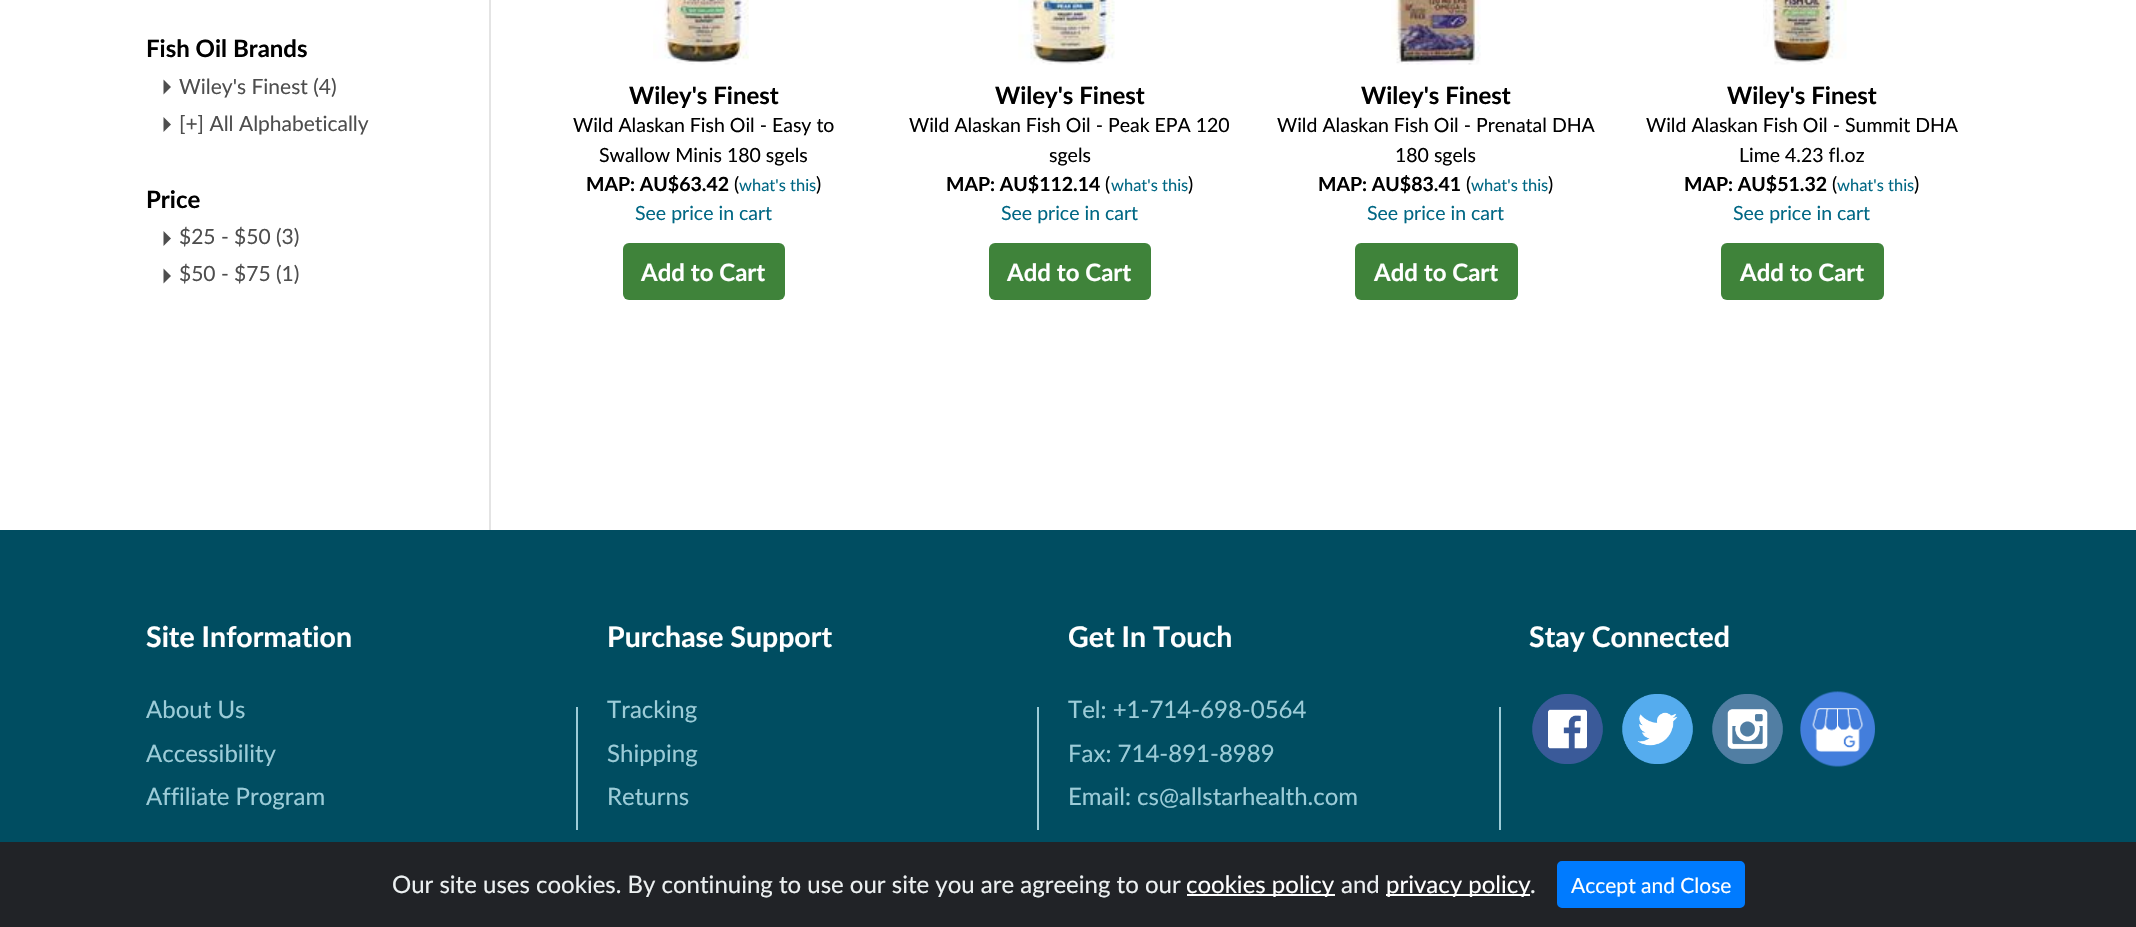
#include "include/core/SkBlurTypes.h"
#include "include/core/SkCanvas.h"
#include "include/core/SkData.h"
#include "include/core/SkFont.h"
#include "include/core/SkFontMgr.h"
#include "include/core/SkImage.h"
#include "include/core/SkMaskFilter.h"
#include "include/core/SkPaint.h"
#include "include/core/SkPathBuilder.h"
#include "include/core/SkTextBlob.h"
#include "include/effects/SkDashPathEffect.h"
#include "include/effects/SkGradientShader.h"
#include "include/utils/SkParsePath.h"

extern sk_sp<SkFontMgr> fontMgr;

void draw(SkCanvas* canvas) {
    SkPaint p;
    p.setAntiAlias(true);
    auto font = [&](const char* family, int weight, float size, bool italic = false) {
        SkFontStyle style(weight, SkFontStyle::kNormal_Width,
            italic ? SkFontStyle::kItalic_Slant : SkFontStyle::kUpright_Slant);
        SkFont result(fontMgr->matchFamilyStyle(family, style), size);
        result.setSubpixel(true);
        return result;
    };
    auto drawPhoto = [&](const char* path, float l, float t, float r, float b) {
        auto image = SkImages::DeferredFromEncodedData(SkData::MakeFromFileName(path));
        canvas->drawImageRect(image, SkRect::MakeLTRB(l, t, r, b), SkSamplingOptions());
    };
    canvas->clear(0xFFFFFFFF);
    p.setColor(0xFFE4E4E4);
    canvas->drawRect(SkRect::MakeLTRB(489, 0, 491, 530), p);
    auto font1 = font("Lato", 700, 24);
    p.setColor(0xFF000000);
    canvas->drawString("Fish Oil Brands", 146, 57, font1, p);
    p.setColor(0xFF4E4E4E);
    canvas->drawPath(SkPathBuilder().moveTo(163.5f, 94.5f).lineTo(163.5f, 79.5f).lineTo(171, 87).close().detach(), p);
    auto font2 = font("Lato", 400, 21);
    canvas->drawString("Wiley's Finest (4)", 179, 94, font2, p);
    canvas->drawPath(SkPathBuilder().moveTo(163.5f, 132).lineTo(163.5f, 117).lineTo(171, 124.5f).close().detach(), p);
    canvas->drawString("[+] All Alphabetically", 179, 131, font2, p);
    p.setColor(0xFF000000);
    canvas->drawString("Price", 146, 208, font1, p);
    p.setColor(0xFF4E4E4E);
    canvas->drawPath(SkPathBuilder().moveTo(163.5f, 246).lineTo(163.5f, 231).lineTo(171, 238.5f).close().detach(), p);
    canvas->drawString("$25 - $50 (3)", 179, 244, font2, p);
    canvas->drawPath(SkPathBuilder().moveTo(163.5f, 283.5f).lineTo(163.5f, 268.5f).lineTo(171, 276).close().detach(), p);
    canvas->drawString("$50 - $75 (1)", 179, 281, font2, p);
    drawPhoto("media/1.png", 653, 0, 749, 65);
    p.setColor(0xFF000000);
    canvas->drawString("Wiley's Finest", 629, 104, font1, p);
    auto font3 = font("Lato", 400, 19.5f);
    canvas->drawString("Wild Alaskan Fish Oil - Easy to", 573, 132, font3, p);
    canvas->drawString("Swallow Minis 180 sgels", 599, 162, font3, p);
    auto font4 = font("Lato", 700, 19.5f);
    canvas->drawString("MAP: AU$63.42", 586, 191, font4, p);
    canvas->drawString("(", 734, 191, font3, p);
    auto font5 = font("Lato", 400, 16.5f);
    p.setColor(0xFF006784);
    canvas->drawString("what's this", 739, 191, font5, p);
    p.setColor(0xFF000000);
    canvas->drawString(")", 816, 191, font3, p);
    p.setColor(0xFF006784);
    canvas->drawString("See price in cart", 635, 220, font3, p);
    p.setColor(0xFF3F833A);
    canvas->drawRoundRect(SkRect::MakeLTRB(623, 243, 785, 300), 6, 6, p);
    p.setColor(0xFFFFFFFF);
    canvas->drawString("Add to Cart", 641, 281, font1, p);
    drawPhoto("media/2.png", 1018, 0, 1115, 65);
    p.setColor(0xFF000000);
    canvas->drawString("Wiley's Finest", 995, 104, font1, p);
    canvas->drawString("Wild Alaskan Fish Oil - Peak EPA 120", 909, 132, font3, p);
    canvas->drawString("sgels", 1049, 162, font3, p);
    canvas->drawString("MAP: AU$112.14", 946, 191, font4, p);
    canvas->drawString("(", 1105, 191, font3, p);
    p.setColor(0xFF006784);
    canvas->drawString("what's this", 1111, 191, font5, p);
    p.setColor(0xFF000000);
    canvas->drawString(")", 1188, 191, font3, p);
    p.setColor(0xFF006784);
    canvas->drawString("See price in cart", 1001, 220, font3, p);
    p.setColor(0xFF3F833A);
    canvas->drawRoundRect(SkRect::MakeLTRB(989, 243, 1151, 300), 6, 6, p);
    p.setColor(0xFFFFFFFF);
    canvas->drawString("Add to Cart", 1007, 281, font1, p);
    drawPhoto("media/3.png", 1391, 0, 1481, 65);
    p.setColor(0xFF000000);
    canvas->drawString("Wiley's Finest", 1361, 104, font1, p);
    canvas->drawString("Wild Alaskan Fish Oil - Prenatal DHA", 1277, 132, font3, p);
    canvas->drawString("180 sgels", 1395, 162, font3, p);
    canvas->drawString("MAP: AU$83.41", 1318, 191, font4, p);
    canvas->drawString("(", 1466, 191, font3, p);
    p.setColor(0xFF006784);
    canvas->drawString("what's this", 1471, 191, font5, p);
    p.setColor(0xFF000000);
    canvas->drawString(")", 1548, 191, font3, p);
    p.setColor(0xFF006784);
    canvas->drawString("See price in cart", 1367, 220, font3, p);
    p.setColor(0xFF3F833A);
    canvas->drawRoundRect(SkRect::MakeLTRB(1355, 243, 1518, 300), 6, 6, p);
    p.setColor(0xFFFFFFFF);
    canvas->drawString("Add to Cart", 1374, 281, font1, p);
    drawPhoto("media/4.png", 1763, 0, 1847, 65);
    p.setColor(0xFF000000);
    canvas->drawString("Wiley's Finest", 1727, 104, font1, p);
    canvas->drawString("Wild Alaskan Fish Oil - Summit DHA", 1646, 132, font3, p);
    canvas->drawString("Lime 4.23 fl.oz", 1739, 162, font3, p);
    canvas->drawString("MAP: AU$51.32", 1684, 191, font4, p);
    canvas->drawString("(", 1832, 191, font3, p);
    p.setColor(0xFF006784);
    canvas->drawString("what's this", 1837, 191, font5, p);
    p.setColor(0xFF000000);
    canvas->drawString(")", 1914, 191, font3, p);
    p.setColor(0xFF006784);
    canvas->drawString("See price in cart", 1733, 220, font3, p);
    p.setColor(0xFF3F833A);
    canvas->drawRoundRect(SkRect::MakeLTRB(1721, 243, 1884, 300), 6, 6, p);
    p.setColor(0xFFFFFFFF);
    canvas->drawString("Add to Cart", 1740, 281, font1, p);
    p.setColor(0xFF004D61);
    canvas->drawRect(SkRect::MakeLTRB(0, 530, 2136, 842), p);
    auto font6 = font("Lato", 700, 28.5f);
    p.setColor(0xFFFFFFFF);
    canvas->drawString("Site Information", 146, 647, font6, p);
    auto font7 = font("Lato", 400, 24);
    p.setColor(0xFF9CCCD8);
    {
        const struct { const char* s; float x, y; } items[] = {
            {"About Us", 146, 718},
            {"Accessibility", 146, 762},
            {"Affiliate Program", 146, 805},
        };
        for (auto [s, x, y] : items) {
            canvas->drawString(s, x, y, font7, p);
        }
    }
    canvas->drawRect(SkRect::MakeLTRB(576, 707, 578, 830), p);
    p.setColor(0xFFFFFFFF);
    canvas->drawString("Purchase Support", 607, 647, font6, p);
    p.setColor(0xFF9CCCD8);
    {
        const struct { const char* s; float x, y; } items[] = {
            {"Tracking", 607, 718},
            {"Shipping", 607, 762},
            {"Returns", 607, 805},
        };
        for (auto [s, x, y] : items) {
            canvas->drawString(s, x, y, font7, p);
        }
    }
    canvas->drawRect(SkRect::MakeLTRB(1037, 707, 1039, 830), p);
    p.setColor(0xFFFFFFFF);
    canvas->drawString("Get In Touch", 1068, 647, font6, p);
    p.setColor(0xFF9CCCD8);
    {
        const struct { const char* s; float x, y; } items[] = {
            {"Tel: +1-714-698-0564", 1068, 718},
            {"Fax: 714-891-8989", 1068, 762},
            {"Email: cs@allstarhealth.com", 1068, 805},
        };
        for (auto [s, x, y] : items) {
            canvas->drawString(s, x, y, font7, p);
        }
    }
    canvas->drawRect(SkRect::MakeLTRB(1499, 707, 1501, 830), p);
    p.setColor(0xFFFFFFFF);
    canvas->drawString("Stay Connected", 1529, 647, font6, p);
    drawPhoto("media/5.png", 1532, 694, 1603, 764);
    drawPhoto("media/6.png", 1622, 694, 1693, 764);
    drawPhoto("media/7.png", 1712, 694, 1783, 764);
    drawPhoto("media/8.png", 1800, 691, 1875, 767);
    p.setColor(0xFF212327);
    canvas->drawRect(SkRect::MakeLTRB(0, 842, 2136, 927), p);
    p.setColor(0xFFECF0F1);
    canvas->drawString("Our site uses cookies. By continuing to use our site you are agreeing to our", 392, 893, font7, p);
    p.setColor(0xFFFFFFFF);
    canvas->drawRect(SkRect::MakeLTRB(1187, 894, 1335, 896), p);
    canvas->drawString("cookies policy", 1186, 893, font7, p);
    p.setColor(0xFFECF0F1);
    canvas->drawString("and", 1341, 893, font7, p);
    p.setColor(0xFFFFFFFF);
    canvas->drawRect(SkRect::MakeLTRB(1386, 894, 1530, 896), p);
    canvas->drawString("privacy policy", 1386, 893, font7, p);
    p.setColor(0xFFECF0F1);
    canvas->drawString(".", 1530, 893, font7, p);
    p.setColor(0xFF007BFF);
    canvas->drawRoundRect(SkRect::MakeLTRB(1558, 862, 1744, 907), 4, 4, p);
    p.setStyle(SkPaint::kStroke_Style);
    p.setStrokeWidth(2);
    canvas->drawRoundRect(SkRect::MakeLTRB(1558, 862, 1744, 907), 4, 4, p);
    p.setStyle(SkPaint::kFill_Style);
    p.setColor(0xFFFFFFFF);
    canvas->drawString("Accept and Close", 1571, 893, font2, p);
}
